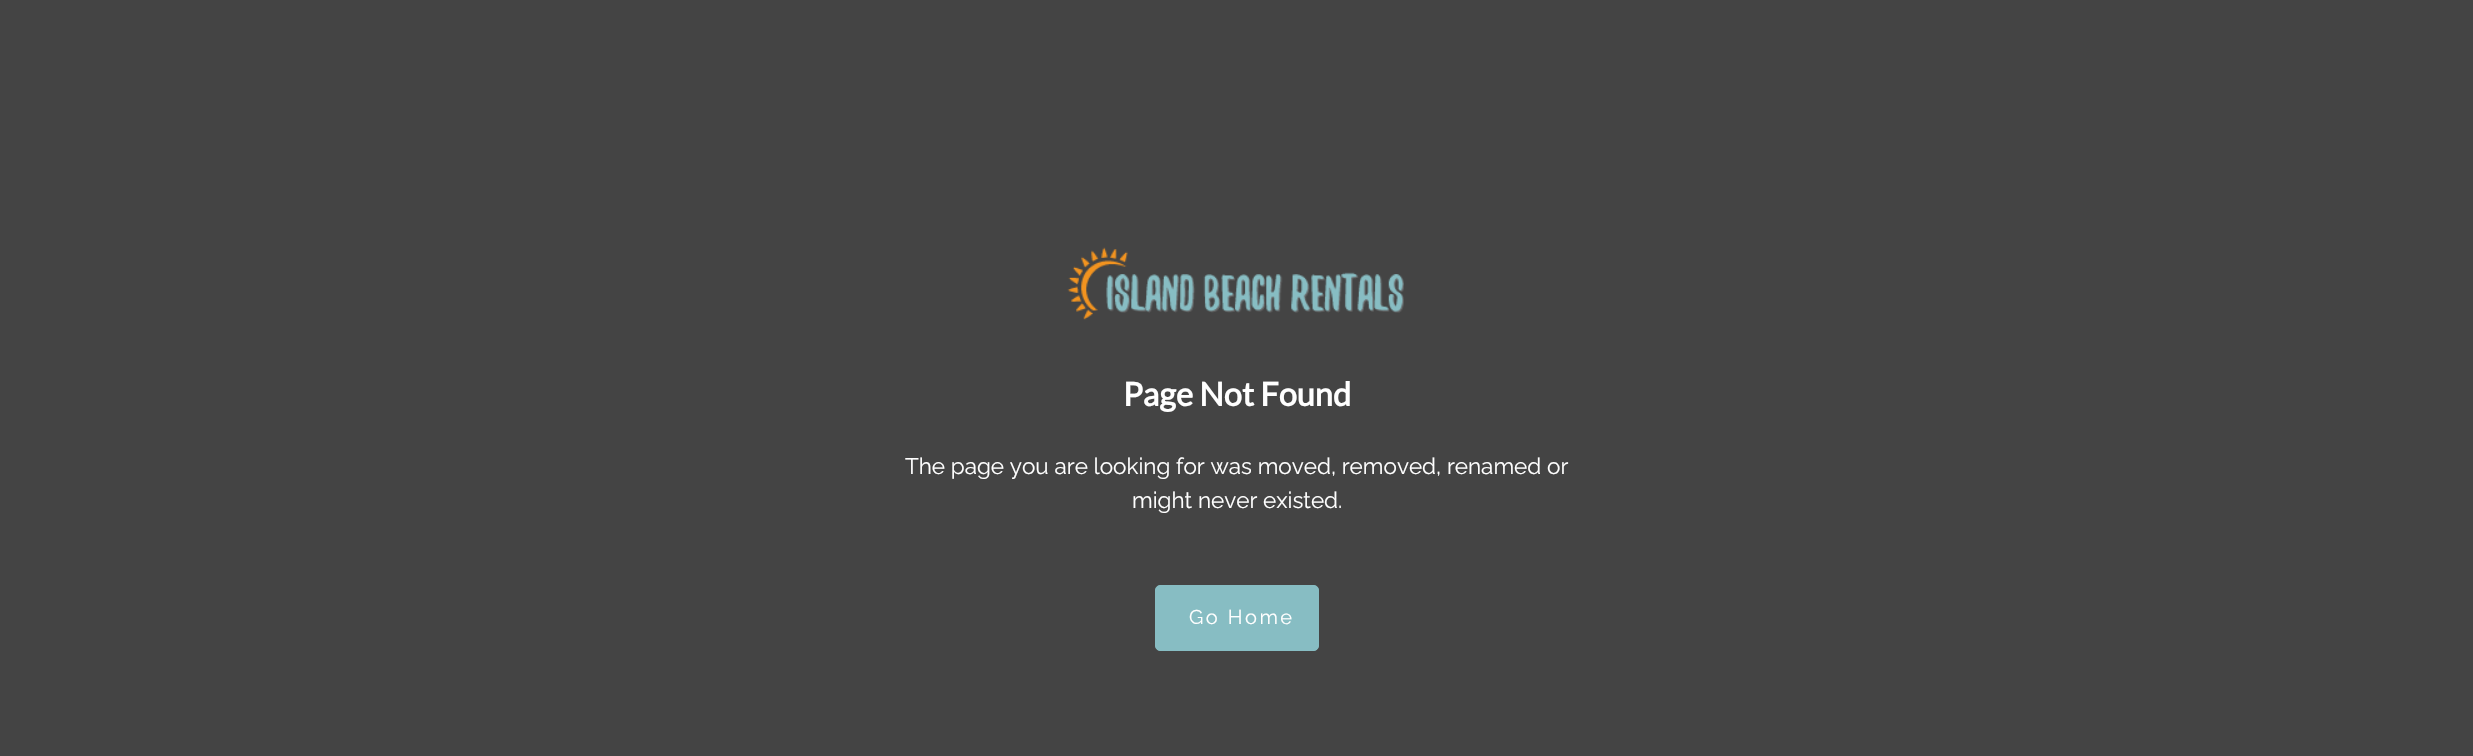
#include "include/core/SkBlurTypes.h"
#include "include/core/SkCanvas.h"
#include "include/core/SkData.h"
#include "include/core/SkFont.h"
#include "include/core/SkFontMgr.h"
#include "include/core/SkImage.h"
#include "include/core/SkMaskFilter.h"
#include "include/core/SkPaint.h"
#include "include/core/SkPathBuilder.h"
#include "include/core/SkTextBlob.h"
#include "include/effects/SkDashPathEffect.h"
#include "include/effects/SkGradientShader.h"
#include "include/utils/SkParsePath.h"

extern sk_sp<SkFontMgr> fontMgr;

void draw(SkCanvas* canvas) {
    SkPaint p;
    p.setAntiAlias(true);
    auto font = [&](const char* family, int weight, float size, bool italic = false) {
        SkFontStyle style(weight, SkFontStyle::kNormal_Width,
            italic ? SkFontStyle::kItalic_Slant : SkFontStyle::kUpright_Slant);
        SkFont result(fontMgr->matchFamilyStyle(family, style), size);
        result.setSubpixel(true);
        return result;
    };
    auto drawTracked = [&](const char* s, float x, float y, const SkFont& font, const SkPaint& ink, float letter, float word) {
        std::vector<SkGlyphID> glyphs(font.countText(s, strlen(s), SkTextEncoding::kUTF8));
        std::vector<float> xs(glyphs.size());
        font.textToGlyphs(s, strlen(s), SkTextEncoding::kUTF8, glyphs);
        font.getXPos(glyphs, xs, x);
        float extra = 0;
        for (size_t i = 0; i < glyphs.size(); i++) {
            xs[i] += extra;
            extra += letter + word * (glyphs[i] == font.unicharToGlyph(' '));
        }
        canvas->drawTextBlob(SkTextBlob::MakeFromPosHGlyphs(glyphs, xs, y, font), 0, 0, ink);
    };
    auto drawPhoto = [&](const char* path, float l, float t, float r, float b) {
        auto image = SkImages::DeferredFromEncodedData(SkData::MakeFromFileName(path));
        canvas->drawImageRect(image, SkRect::MakeLTRB(l, t, r, b), SkSamplingOptions());
    };
    canvas->clear(0xFF444444);
    drawPhoto("media/1.png", 1067, 247, 1404, 320);
    auto font1 = font("Lato", 700, 32.5f);
    p.setColor(0xFFFFFFFF);
    canvas->drawString("Page Not Found", 1123, 406, font1, p);
    auto font2 = font("Raleway", 100, 22.5f);
    canvas->drawString("The page you are looking for was moved, removed, renamed or", 905, 474, font2, p);
    canvas->drawString("might never existed.", 1132, 508, font2, p);
    p.setColor(0xFF87BDC3);
    canvas->drawRoundRect(SkRect::MakeLTRB(1155.5f, 585.5f, 1318.5f, 650.5f), 4.5f, 4.5f, p);
    p.setStyle(SkPaint::kStroke_Style);
    p.setStrokeWidth(1);
    canvas->drawRoundRect(SkRect::MakeLTRB(1155.5f, 585.5f, 1318.5f, 650.5f), 4.5f, 4.5f, p);
    auto font3 = font("Raleway", 100, 20);
    p.setStyle(SkPaint::kFill_Style);
    p.setColor(0xFFFFFFFF);
    drawTracked("Go Home", 1189, 624, font3, p, 2.5f, 0);
}
